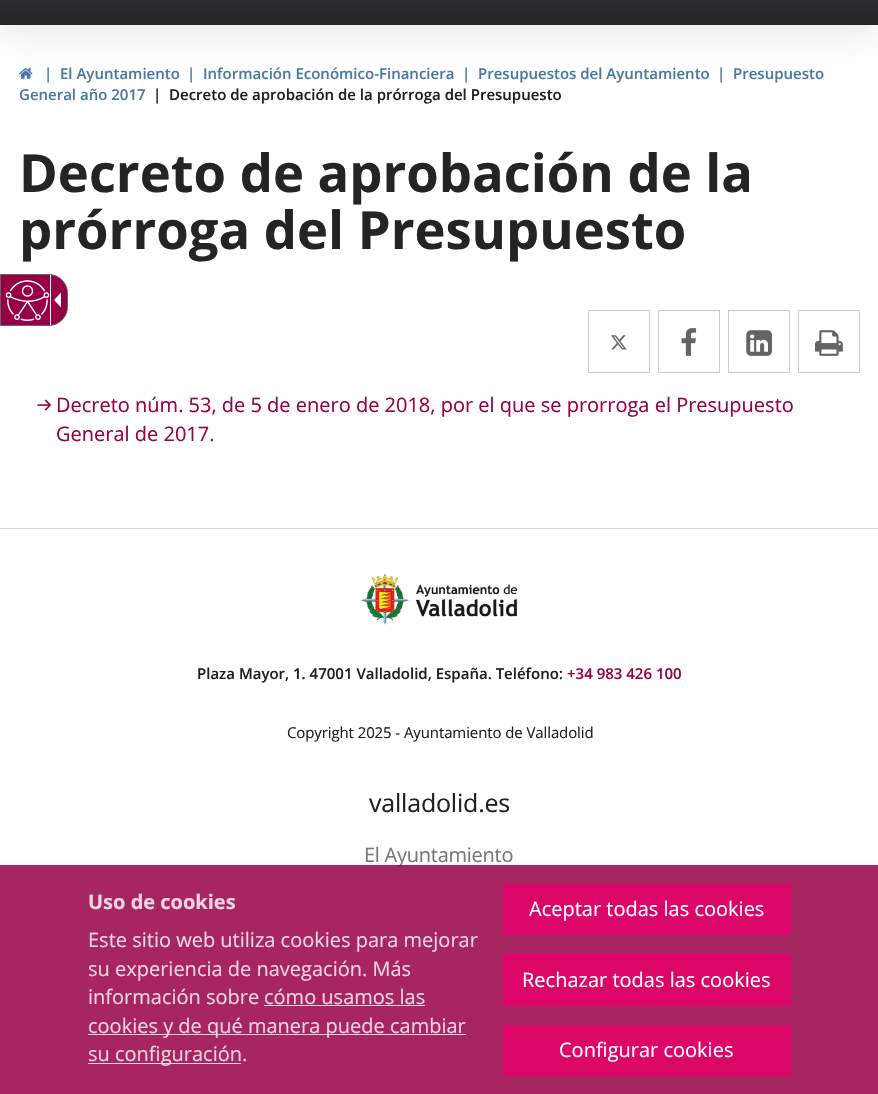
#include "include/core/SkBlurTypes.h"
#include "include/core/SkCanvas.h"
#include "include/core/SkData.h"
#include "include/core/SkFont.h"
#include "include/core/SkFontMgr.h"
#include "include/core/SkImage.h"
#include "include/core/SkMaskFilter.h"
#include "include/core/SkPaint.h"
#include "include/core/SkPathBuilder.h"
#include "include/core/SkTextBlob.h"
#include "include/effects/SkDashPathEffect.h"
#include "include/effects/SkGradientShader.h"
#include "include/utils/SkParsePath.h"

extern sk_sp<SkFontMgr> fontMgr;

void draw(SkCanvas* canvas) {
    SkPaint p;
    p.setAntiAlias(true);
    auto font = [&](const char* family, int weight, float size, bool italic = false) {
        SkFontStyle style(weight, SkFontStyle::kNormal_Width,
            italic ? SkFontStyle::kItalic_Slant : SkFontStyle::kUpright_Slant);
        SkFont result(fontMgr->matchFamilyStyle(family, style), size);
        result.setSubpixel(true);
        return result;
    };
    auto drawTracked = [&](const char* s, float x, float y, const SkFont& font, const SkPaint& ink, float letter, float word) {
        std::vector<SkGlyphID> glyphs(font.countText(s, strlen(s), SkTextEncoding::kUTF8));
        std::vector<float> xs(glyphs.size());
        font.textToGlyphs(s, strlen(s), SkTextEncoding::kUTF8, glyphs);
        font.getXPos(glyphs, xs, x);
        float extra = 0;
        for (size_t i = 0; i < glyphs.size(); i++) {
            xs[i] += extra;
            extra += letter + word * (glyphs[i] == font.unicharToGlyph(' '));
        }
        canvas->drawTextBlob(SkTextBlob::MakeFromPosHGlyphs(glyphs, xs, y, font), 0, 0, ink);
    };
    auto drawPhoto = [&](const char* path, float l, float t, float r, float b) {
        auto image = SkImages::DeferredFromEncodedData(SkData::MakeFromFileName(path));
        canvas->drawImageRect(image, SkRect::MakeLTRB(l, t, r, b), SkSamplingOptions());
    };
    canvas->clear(0xFFFFFFFF);
    p.setColor(0x1A000000);
    p.setMaskFilter(SkMaskFilter::MakeBlur(kNormal_SkBlurStyle, 19));
    canvas->drawRect(SkRect::MakeLTRB(0, -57, 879, 30), p);
    p.setMaskFilter(nullptr);
    {
        const SkColor colors[] = {0xFF232526, 0xFF414345};
        const float stops[] = {0, 1};
        const SkPoint ends[] = {{439, 25}, {439, -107}};
        p.setShader(SkGradientShader::MakeLinear(ends, colors, stops, 2, SkTileMode::kClamp));
        p.setAlpha(255);
    }
    canvas->drawRect(SkRect::MakeLTRB(0, 0, 878, 25), p);
    drawPhoto("media/1.png", 19, 68, 33, 79);
    auto font1 = font("Open Sans", 600, 15);
    p.setShader(nullptr);
    p.setColor(0xFF4879A4);
    {
        const struct { const char* s; float x, y; } items[] = {
            {"|", 44, 79},
            {"El Ayuntamiento", 60, 79},
            {"|", 187, 79},
            {"Información Económico-Financiera", 203, 79},
            {"|", 462, 79},
            {"Presupuestos del Ayuntamiento", 478, 79},
            {"|", 717, 79},
            {"Presupuesto", 733, 79},
            {"General año 2017", 19, 100},
        };
        for (auto [s, x, y] : items) {
            canvas->drawString(s, x, y, font1, p);
        }
    }
    p.setColor(0xFF1E1E1E);
    canvas->drawString("|", 153, 100, font1, p);
    canvas->drawString("Decreto de aprobación de la prórroga del Presupuesto", 169, 100, font1, p);
    auto font2 = font("Open Sans", 700, 52.5f);
    p.setColor(0xFF242424);
    canvas->drawString("Decreto de aprobación de la", 19, 192, font2, p);
    canvas->drawString("prórroga del Presupuesto", 19, 249, font2, p);
    p.setStyle(SkPaint::kStroke_Style);
    p.setStrokeWidth(1);
    p.setColor(0xFFCDCDCD);
    canvas->drawRect(SkRect::MakeLTRB(588.5f, 310.5f, 649.5f, 372.5f), p);
    drawPhoto("media/2.png", 611, 335, 627, 350);
    canvas->drawRect(SkRect::MakeLTRB(658.5f, 310.5f, 719.5f, 372.5f), p);
    drawPhoto("media/3.png", 681, 328, 697, 356);
    canvas->drawRect(SkRect::MakeLTRB(728.5f, 310.5f, 789.5f, 372.5f), p);
    drawPhoto("media/4.png", 746, 330, 772, 356);
    canvas->drawRect(SkRect::MakeLTRB(798.5f, 310.5f, 859.5f, 372.5f), p);
    drawPhoto("media/5.png", 815, 330, 843, 356);
    drawPhoto("media/6.png", 37, 399, 52, 411);
    auto font3 = font("Open Sans", 400, 20);
    p.setStyle(SkPaint::kFill_Style);
    p.setColor(0xFF980046);
    canvas->drawString("Decreto núm. 53, de 5 de enero de 2018, por el que se prorroga el Presupuesto", 56, 412, font3, p);
    canvas->drawString("General de 2017.", 56, 441, font3, p);
    p.setColor(0xFFD2D2D2);
    canvas->drawRect(SkRect::MakeLTRB(0, 528, 878, 529), p);
    drawPhoto("media/7.png", 361, 573, 409, 625);
    drawPhoto("media/8.png", 415, 584, 518, 617);
    p.setColor(0xFF1E1E1E);
    canvas->drawString("Plaza Mayor, 1. 47001 Valladolid, España. Teléfono:", 197, 679, font1, p);
    p.setColor(0xFF980046);
    canvas->drawString("+34 983 426 100", 567, 679, font1, p);
    auto font4 = font("Open Sans", 400, 15);
    p.setColor(0xFF1E1E1E);
    drawTracked("Copyright 2025 - Ayuntamiento de Valladolid", 287, 738, font4, p, -0.1f, 0);
    auto font5 = font("Open Sans", 400, 25);
    drawTracked("valladolid.es", 369, 812, font5, p, -0.2f, 0);
    p.setColor(0xFF767677);
    drawTracked("El Ayuntamiento", 364, 862, font3, p, -0.25f, 0);
    p.setColor(0xFF980046);
    canvas->drawPath(SkPathBuilder().moveTo(0.5f, 274.5f).lineTo(49, 274.5f).cubicTo(59, 274.5f, 67.5f, 283, 67.5f, 293).lineTo(67.5f, 307).cubicTo(67.5f, 317, 59, 325.5f, 49, 325.5f).lineTo(0.5f, 325.5f).close().detach(), p);
    p.setStyle(SkPaint::kStroke_Style);
    p.setColor(0xFF646464);
    canvas->drawPath(SkPathBuilder().moveTo(0.5f, 274.5f).lineTo(49, 274.5f).cubicTo(59, 274.5f, 67.5f, 283, 67.5f, 293).lineTo(67.5f, 307).cubicTo(67.5f, 317, 59, 325.5f, 49, 325.5f).lineTo(0.5f, 325.5f).close().detach(), p);
    p.setStyle(SkPaint::kFill_Style);
    p.setColor(0xFFFFFFFF);
    canvas->drawRect(SkRect::MakeLTRB(50, 275, 51, 325), p);
    drawPhoto("media/9.png", 5, 280, 50, 321);
    canvas->drawPath(SkPathBuilder().moveTo(61, 292.5f).lineTo(61, 307.5f).lineTo(54, 300).close().detach(), p);
    p.setColor(0xD9980046);
    canvas->drawRect(SkRect::MakeLTRB(0, 865, 878, 1094), p);
    auto font6 = font("Open Sans", 700, 20);
    p.setColor(0xFFEDD4E0);
    canvas->drawString("Uso de cookies", 88, 909, font6, p);
    {
        const struct { const char* s; float x, y; } items[] = {
            {"Este sitio web utiliza cookies para mejorar", 88, 947},
            {"su experiencia de navegación. Más", 88, 976},
            {"información sobre", 88, 1004},
            {"cómo usamos las", 264, 1004},
        };
        for (auto [s, x, y] : items) {
            canvas->drawString(s, x, y, font3, p);
        }
    }
    canvas->drawRect(SkRect::MakeLTRB(264, 1005, 425, 1006), p);
    p.setColor(0xCCFFFFFF);
    canvas->drawRect(SkRect::MakeLTRB(88, 1034, 466, 1035), p);
    p.setColor(0xFFEDD4E0);
    canvas->drawString("cookies y de qué manera puede cambiar", 88, 1033, font3, p);
    canvas->drawRect(SkRect::MakeLTRB(88, 1063, 241, 1064), p);
    canvas->drawString("su configuración", 88, 1061, font3, p);
    canvas->drawString(".", 242, 1061, font3, p);
    p.setColor(0xFFDC0668);
    canvas->drawRect(SkRect::MakeLTRB(503, 884, 791, 935), p);
    p.setColor(0xFFFFFFFF);
    canvas->drawString("Aceptar todas las cookies", 529, 916, font3, p);
    p.setColor(0xD9E50069);
    canvas->drawRect(SkRect::MakeLTRB(503, 954, 791, 1006), p);
    p.setColor(0xFFFFFFFF);
    canvas->drawString("Rechazar todas las cookies", 522, 987, font3, p);
    p.setColor(0xD9E50069);
    canvas->drawRect(SkRect::MakeLTRB(503, 1025, 791, 1076), p);
    p.setColor(0xFFFFFFFF);
    canvas->drawString("Configurar cookies", 559, 1057, font3, p);
}
